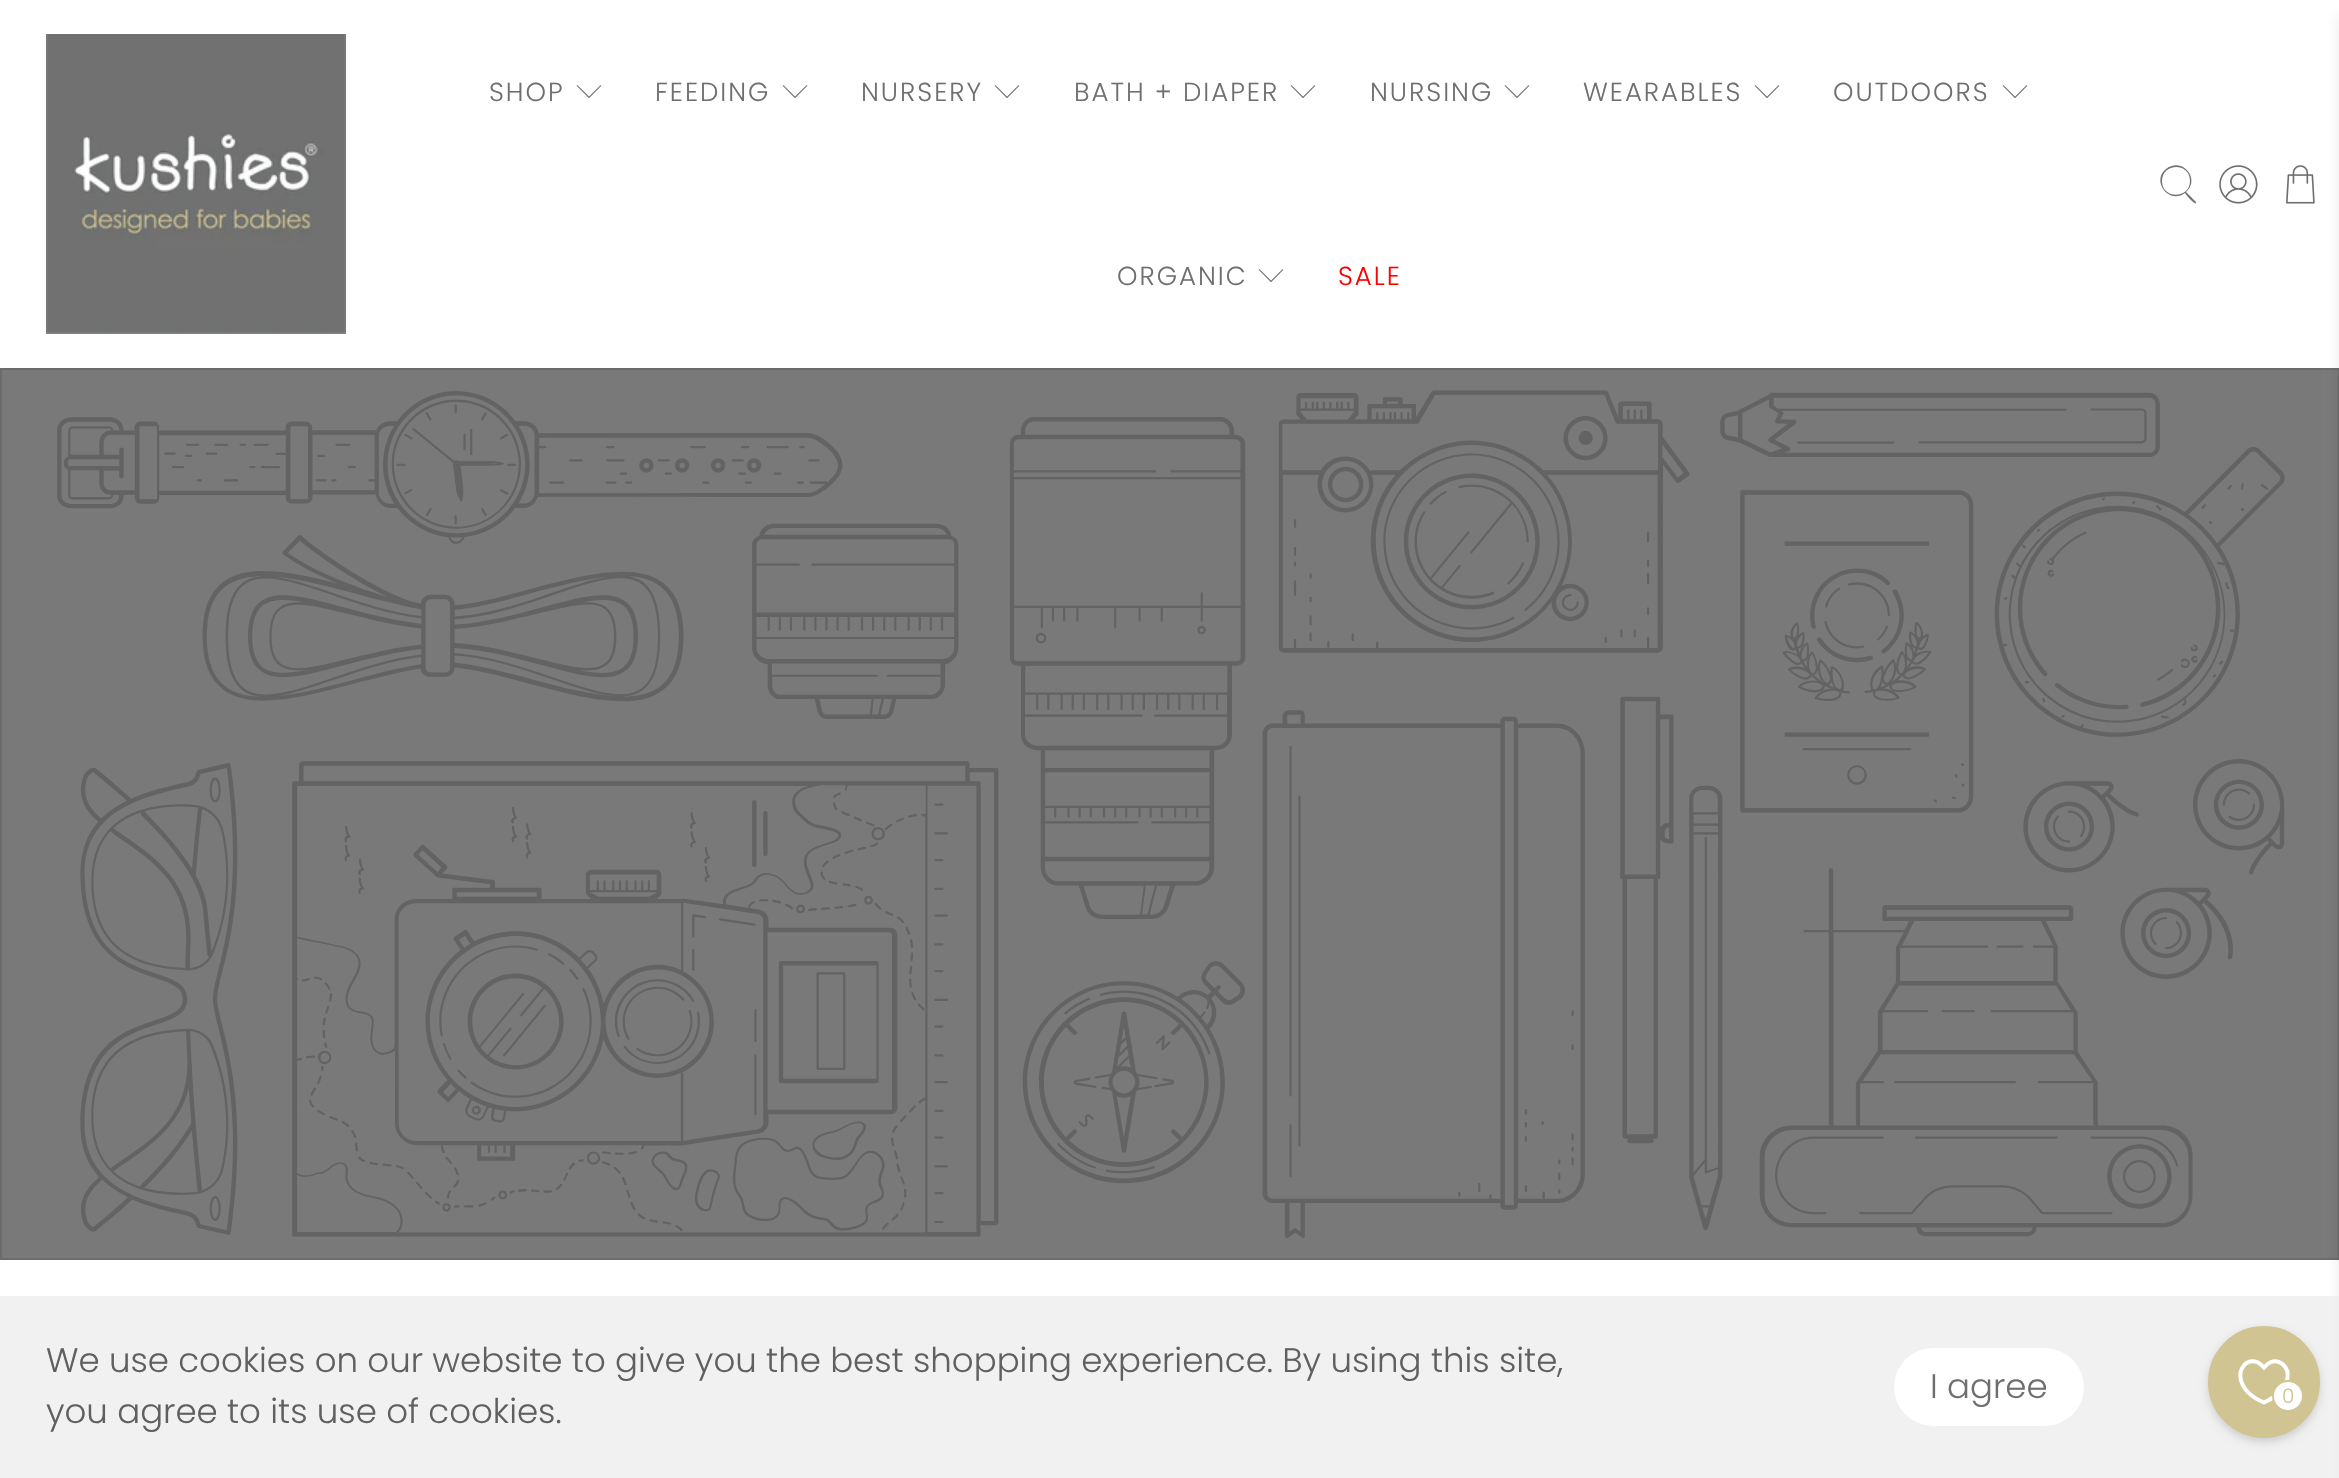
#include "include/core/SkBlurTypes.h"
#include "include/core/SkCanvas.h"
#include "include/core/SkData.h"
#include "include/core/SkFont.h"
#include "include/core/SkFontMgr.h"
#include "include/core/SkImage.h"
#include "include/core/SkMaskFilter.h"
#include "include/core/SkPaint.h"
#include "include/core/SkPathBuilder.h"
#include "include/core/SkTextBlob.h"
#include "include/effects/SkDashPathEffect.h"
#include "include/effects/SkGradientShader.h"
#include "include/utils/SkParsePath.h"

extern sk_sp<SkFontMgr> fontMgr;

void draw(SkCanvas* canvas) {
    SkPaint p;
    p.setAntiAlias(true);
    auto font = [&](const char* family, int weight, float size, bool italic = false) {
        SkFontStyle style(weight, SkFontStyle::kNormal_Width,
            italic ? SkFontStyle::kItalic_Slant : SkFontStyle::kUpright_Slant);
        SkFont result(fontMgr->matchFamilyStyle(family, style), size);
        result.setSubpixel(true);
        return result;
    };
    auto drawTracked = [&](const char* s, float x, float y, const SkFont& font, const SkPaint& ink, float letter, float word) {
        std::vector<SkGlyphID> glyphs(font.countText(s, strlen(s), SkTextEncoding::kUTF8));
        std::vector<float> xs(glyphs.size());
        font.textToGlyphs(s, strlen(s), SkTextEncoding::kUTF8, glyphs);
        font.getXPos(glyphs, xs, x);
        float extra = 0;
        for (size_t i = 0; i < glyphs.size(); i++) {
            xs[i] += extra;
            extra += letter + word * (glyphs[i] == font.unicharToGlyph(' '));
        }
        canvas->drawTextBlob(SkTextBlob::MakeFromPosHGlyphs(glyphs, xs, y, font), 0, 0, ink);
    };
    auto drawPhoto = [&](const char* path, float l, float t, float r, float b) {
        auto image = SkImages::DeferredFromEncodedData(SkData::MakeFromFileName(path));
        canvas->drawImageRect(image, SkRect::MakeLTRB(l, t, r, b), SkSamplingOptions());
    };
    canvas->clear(0xFFFFFFFF);
    drawPhoto("media/1.png", 46, 34, 346, 334);
    auto font1 = font("Poppins", 300, 26);
    p.setColor(0xFF6F6F6F);
    drawTracked("SHOP", 489, 101, font1, p, 2, 0);
    drawPhoto("media/2.png", 576, 85, 602, 98);
    drawTracked("FEEDING", 655, 101, font1, p, 2, 0);
    drawPhoto("media/2.png", 782, 85, 808, 98);
    drawTracked("NURSERY", 861, 101, font1, p, 2, 0);
    drawPhoto("media/2.png", 994, 85, 1020, 98);
    drawTracked("BATH + DIAPER", 1074, 101, font1, p, 2, 0);
    drawPhoto("media/2.png", 1290, 85, 1316, 98);
    drawTracked("NURSING", 1370, 101, font1, p, 2, 0);
    drawPhoto("media/2.png", 1504, 85, 1530, 98);
    drawTracked("WEARABLES", 1583, 101, font1, p, 2, 0);
    drawPhoto("media/2.png", 1754, 85, 1780, 98);
    drawTracked("OUTDOORS", 1833, 101, font1, p, 2, 0);
    drawPhoto("media/2.png", 2002, 85, 2028, 98);
    drawTracked("ORGANIC", 1117, 285, font1, p, 2, 0);
    drawPhoto("media/2.png", 1258, 269, 1284, 282);
    p.setColor(0xFFFF0000);
    drawTracked("SALE", 1338, 285, font1, p, 2, 0);
    p.setColor(0xFF6F6F6F);
    canvas->drawPath(SkPathBuilder().moveTo(2196, 202).lineTo(2186, 192).cubicTo(2201, 179, 2182, 156, 2166, 169).cubicTo(2151, 181, 2169, 205, 2185, 193).cubicTo(2187, 196, 2195, 205, 2196, 203).close().moveTo(2162, 181).cubicTo(2162, 163, 2189, 162, 2190, 180).cubicTo(2191, 199, 2162, 200, 2162, 181).close().detach(), p);
    drawPhoto("media/3.png", 2219, 165, 2258, 204);
    drawPhoto("media/4.png", 2286, 165, 2315, 204);
    p.setColor(0xFF797979);
    canvas->drawRect(SkRect::MakeLTRB(1, 369, 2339, 1259), p);
    p.setStyle(SkPaint::kStroke_Style);
    p.setStrokeWidth(2);
    p.setColor(0xFF6C6C6C);
    canvas->drawRect(SkRect::MakeLTRB(1, 369, 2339, 1259), p);
    p.setStyle(SkPaint::kFill_Style);
    p.setColor(0x1A0A0A0A);
    p.setMaskFilter(SkMaskFilter::MakeBlur(kNormal_SkBlurStyle, 8));
    canvas->drawRect(SkRect::MakeLTRB(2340, 16, 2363, 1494), p);
    p.setMaskFilter(nullptr);
    drawPhoto("media/5.png", 57, 390, 2285, 1239);
    p.setColor(0xC4EDEDED);
    canvas->drawRect(SkRect::MakeLTRB(0, 1296, 2339, 1478), p);
    auto font2 = font("Poppins", 300, 34);
    p.setColor(0xFF606060);
    canvas->drawString("We use cookies on our website to give you the best shopping experience. By using this site,", 46, 1372, font2, p);
    canvas->drawString("you agree to its use of cookies.", 46, 1423, font2, p);
    p.setColor(0xFFFFFFFF);
    canvas->drawRoundRect(SkRect::MakeLTRB(1894, 1348, 2084, 1426), 39, 39, p);
    p.setColor(0xFF6F6F6F);
    canvas->drawString("I agree", 1930, 1398, font2, p);
    p.setColor(0x26000000);
    p.setMaskFilter(SkMaskFilter::MakeBlur(kNormal_SkBlurStyle, 4));
    canvas->drawRoundRect(SkRect::MakeLTRB(2208, 1330, 2320, 1442), 56, 56, p);
    p.setMaskFilter(nullptr);
    p.setColor(0xFFD1C493);
    canvas->drawCircle(2264, 1382, 54, p);
    p.setStyle(SkPaint::kStroke_Style);
    p.setStrokeWidth(4);
    canvas->drawCircle(2264, 1382, 54, p);
    p.setColor(0xFFFFFFFF);
    canvas->drawPath(SkPathBuilder().moveTo(2264, 1402.5f).cubicTo(2254.5f, 1398.5f, 2244, 1391, 2241, 1380.5f).cubicTo(2238, 1369.5f, 2246, 1357.5f, 2258, 1362.5f).cubicTo(2260.5f, 1363.5f, 2262, 1365.5f, 2264, 1367.5f).cubicTo(2266, 1365.5f, 2267.5f, 1363.5f, 2270, 1362.5f).cubicTo(2280, 1358, 2289, 1367.5f, 2287.5f, 1377.5f).cubicTo(2286, 1389.5f, 2274.5f, 1398, 2264, 1402.5f).close().detach(), p);
    p.setStyle(SkPaint::kFill_Style);
    canvas->drawCircle(2288, 1396, 15, p);
    p.setStyle(SkPaint::kStroke_Style);
    p.setStrokeWidth(2);
    p.setColor(0xFFD1C493);
    canvas->drawCircle(2288, 1396, 15, p);
    auto font3 = font("Poppins", 300, 20);
    p.setStyle(SkPaint::kFill_Style);
    canvas->drawString("0", 2282, 1403, font3, p);
}
